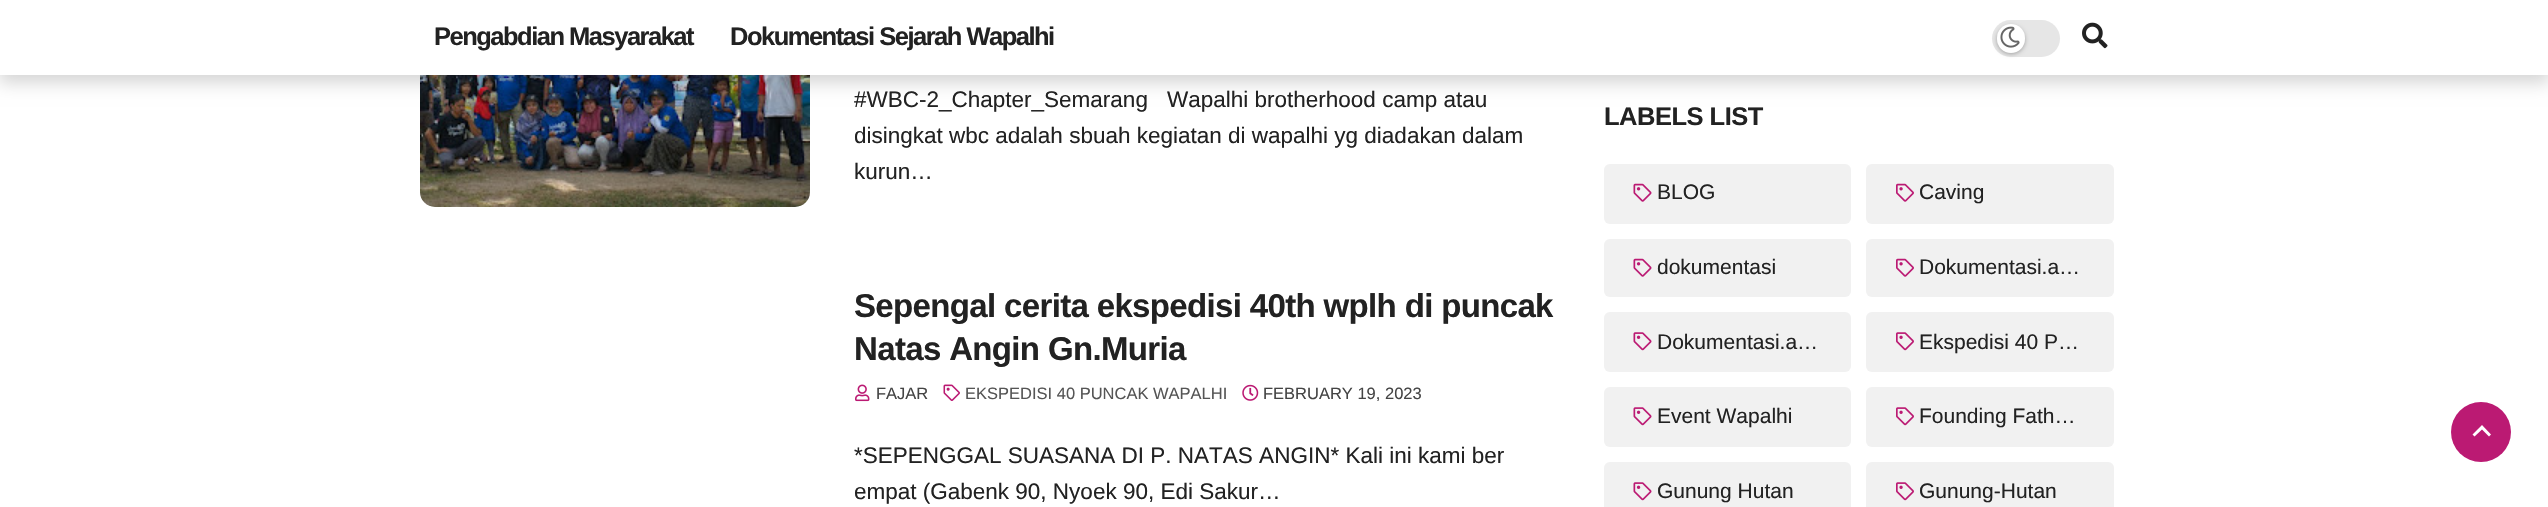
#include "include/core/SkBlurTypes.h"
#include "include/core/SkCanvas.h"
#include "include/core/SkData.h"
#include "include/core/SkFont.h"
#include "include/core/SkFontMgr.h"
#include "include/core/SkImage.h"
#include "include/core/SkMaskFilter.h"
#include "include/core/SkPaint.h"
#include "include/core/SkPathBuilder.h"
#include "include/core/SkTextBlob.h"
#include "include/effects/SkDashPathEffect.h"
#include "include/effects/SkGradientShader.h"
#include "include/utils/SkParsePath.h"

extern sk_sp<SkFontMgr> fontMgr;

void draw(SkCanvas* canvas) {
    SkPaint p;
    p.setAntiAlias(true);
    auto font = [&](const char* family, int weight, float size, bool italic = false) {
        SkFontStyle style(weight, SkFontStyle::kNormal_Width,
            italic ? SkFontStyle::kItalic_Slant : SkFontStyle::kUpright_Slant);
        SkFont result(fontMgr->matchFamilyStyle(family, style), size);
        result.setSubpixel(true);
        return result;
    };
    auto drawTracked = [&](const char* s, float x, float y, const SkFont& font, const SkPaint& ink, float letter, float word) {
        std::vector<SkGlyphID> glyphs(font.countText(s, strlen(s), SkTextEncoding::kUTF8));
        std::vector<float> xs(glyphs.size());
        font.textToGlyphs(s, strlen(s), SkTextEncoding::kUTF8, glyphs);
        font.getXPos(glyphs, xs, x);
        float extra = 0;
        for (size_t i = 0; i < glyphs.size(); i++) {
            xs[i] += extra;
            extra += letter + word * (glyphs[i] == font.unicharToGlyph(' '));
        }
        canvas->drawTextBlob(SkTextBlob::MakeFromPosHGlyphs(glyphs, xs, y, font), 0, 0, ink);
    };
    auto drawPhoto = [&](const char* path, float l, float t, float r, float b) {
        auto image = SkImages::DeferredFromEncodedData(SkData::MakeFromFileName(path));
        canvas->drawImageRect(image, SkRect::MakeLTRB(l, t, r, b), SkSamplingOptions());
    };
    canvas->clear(0xFFFFFFFF);
    drawPhoto("media/3.png", 420, 75, 810, 207);
    p.setColor(0x29000000);
    p.setMaskFilter(SkMaskFilter::MakeBlur(kNormal_SkBlurStyle, 8));
    canvas->drawRect(SkRect::MakeLTRB(-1, 5, 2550, 83), p);
    p.setMaskFilter(nullptr);
    p.setColor(0xFFFFFFFF);
    canvas->drawRect(SkRect::MakeLTRB(0, 0, 2548, 75), p);
    auto font1 = font("Liberation Sans", 700, 25.5f);
    p.setColor(0xFF222222);
    drawTracked("Pengabdian Masyarakat", 434, 45, font1, p, -1.5f, 0);
    drawTracked("Dokumentasi Sejarah Wapalhi", 730, 45, font1, p, -1.5f, 0);
    p.setColor(0xFFE6E6E6);
    canvas->drawRoundRect(SkRect::MakeLTRB(1992, 20, 2060, 57), 18.5f, 18.5f, p);
    p.setColor(0x4D000000);
    p.setMaskFilter(SkMaskFilter::MakeBlur(kNormal_SkBlurStyle, 2));
    canvas->drawRoundRect(SkRect::MakeLTRB(1997, 26, 2025, 54), 14, 14, p);
    p.setMaskFilter(nullptr);
    p.setColor(0xFFFFFFFF);
    canvas->drawRoundRect(SkRect::MakeLTRB(1997, 24, 2025, 53), 14, 14, p);
    drawPhoto("media/1.png", 2000, 26, 2020, 48);
    drawPhoto("media/2.png", 2082, 22, 2108, 49);
    auto font2 = font("Liberation Sans", 400, 22.5f);
    p.setColor(0xFF222222);
    {
        const struct { const char* s; float x, y; } items[] = {
            {"#WBC-2_Chapter_Semarang", 854, 107},
            {"Wapalhi brotherhood camp atau", 1167, 107},
            {"disingkat wbc adalah sbuah kegiatan di wapalhi yg diadakan dalam", 854, 143},
            {"kurun…", 854, 179},
        };
        for (auto [s, x, y] : items) {
            canvas->drawString(s, x, y, font2, p);
        }
    }
    auto font3 = font("Liberation Sans", 700, 33);
    drawTracked("Sepengal cerita ekspedisi 40th wplh di puncak", 854, 317, font3, p, -0.65f, 0);
    drawTracked("Natas Angin Gn.Muria", 854, 360, font3, p, -0.65f, 0);
    drawPhoto("media/4.png", 855, 384, 870, 402);
    auto font4 = font("Liberation Sans", 400, 16.5f);
    p.setColor(0xFF444444);
    canvas->drawString("FAJAR", 876, 399, font4, p);
    drawPhoto("media/5.png", 943, 384, 960, 401);
    p.setColor(0xFF555555);
    canvas->drawString("EKSPEDISI 40 PUNCAK WAPALHI", 965, 399, font4, p);
    drawPhoto("media/6.png", 1242, 384, 1259, 401);
    p.setColor(0xFF444444);
    canvas->drawString("FEBRUARY 19, 2023", 1263, 399, font4, p);
    p.setColor(0xFF222222);
    canvas->drawString("*SEPENGGAL SUASANA DI P. NATAS ANGIN* Kali ini kami ber", 854, 463, font2, p);
    canvas->drawString("empat (Gabenk 90, Nyoek 90, Edi Sakur…", 854, 499, font2, p);
    drawTracked("LABELS LIST", 1604, 125, font1, p, -0.5f, 0);
    p.setColor(0xFFF1F1F1);
    canvas->drawRoundRect(SkRect::MakeLTRB(1604, 164, 1851, 224), 6, 6, p);
    drawPhoto("media/7.png", 1633, 183, 1652, 202);
    auto font5 = font("Liberation Sans", 400, 21);
    p.setColor(0xFF222222);
    canvas->drawString("BLOG", 1657, 199, font5, p);
    p.setColor(0xFFF1F1F1);
    canvas->drawRoundRect(SkRect::MakeLTRB(1866, 164, 2114, 224), 6, 6, p);
    drawPhoto("media/8.png", 1896, 183, 1914, 202);
    p.setColor(0xFF222222);
    canvas->drawString("Caving", 1919, 199, font5, p);
    p.setColor(0xFFF1F1F1);
    canvas->drawRoundRect(SkRect::MakeLTRB(1604, 239, 1851, 297), 6, 6, p);
    drawPhoto("media/7.png", 1633, 258, 1652, 277);
    p.setColor(0xFF222222);
    canvas->drawString("dokumentasi", 1657, 274, font5, p);
    p.setColor(0xFFF1F1F1);
    canvas->drawRoundRect(SkRect::MakeLTRB(1866, 239, 2114, 297), 6, 6, p);
    drawPhoto("media/8.png", 1896, 258, 1914, 277);
    p.setColor(0xFF222222);
    canvas->drawString("Dokumentasi.a…", 1919, 274, font5, p);
    p.setColor(0xFFF1F1F1);
    canvas->drawRoundRect(SkRect::MakeLTRB(1604, 312, 1851, 372), 6, 6, p);
    drawPhoto("media/9.png", 1633, 332, 1652, 351);
    p.setColor(0xFF222222);
    canvas->drawString("Dokumentasi.a…", 1657, 349, font5, p);
    p.setColor(0xFFF1F1F1);
    canvas->drawRoundRect(SkRect::MakeLTRB(1866, 312, 2114, 372), 6, 6, p);
    drawPhoto("media/10.png", 1896, 332, 1914, 351);
    p.setColor(0xFF222222);
    canvas->drawString("Ekspedisi 40 P…", 1919, 349, font5, p);
    p.setColor(0xFFF1F1F1);
    canvas->drawRoundRect(SkRect::MakeLTRB(1604, 387, 1851, 447), 6, 6, p);
    drawPhoto("media/9.png", 1633, 407, 1652, 426);
    p.setColor(0xFF222222);
    canvas->drawString("Event Wapalhi", 1657, 423, font5, p);
    p.setColor(0xFFF1F1F1);
    canvas->drawRoundRect(SkRect::MakeLTRB(1866, 387, 2114, 447), 6, 6, p);
    drawPhoto("media/10.png", 1896, 407, 1914, 426);
    p.setColor(0xFF222222);
    canvas->drawString("Founding Fath…", 1919, 423, font5, p);
    p.setColor(0xFFF1F1F1);
    canvas->drawRoundRect(SkRect::MakeLTRB(1604, 462, 1851, 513), 6, 6, p);
    drawPhoto("media/9.png", 1633, 482, 1652, 501);
    p.setColor(0xFF222222);
    canvas->drawString("Gunung Hutan", 1657, 498, font5, p);
    p.setColor(0xFFF1F1F1);
    canvas->drawRoundRect(SkRect::MakeLTRB(1866, 462, 2114, 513), 6, 6, p);
    drawPhoto("media/10.png", 1896, 482, 1914, 501);
    p.setColor(0xFF222222);
    canvas->drawString("Gunung-Hutan", 1919, 498, font5, p);
    p.setColor(0xFFBB1A73);
    canvas->drawCircle(2481, 432, 30, p);
    p.setColor(0xFFFFFFFF);
    canvas->drawPath(SkPathBuilder().moveTo(2474.5f, 436.5f).lineTo(2482, 429.5f).lineTo(2489, 436.5f).lineTo(2491, 434.5f).lineTo(2482, 425).lineTo(2472.5f, 434.5f).close().detach(), p);
}
